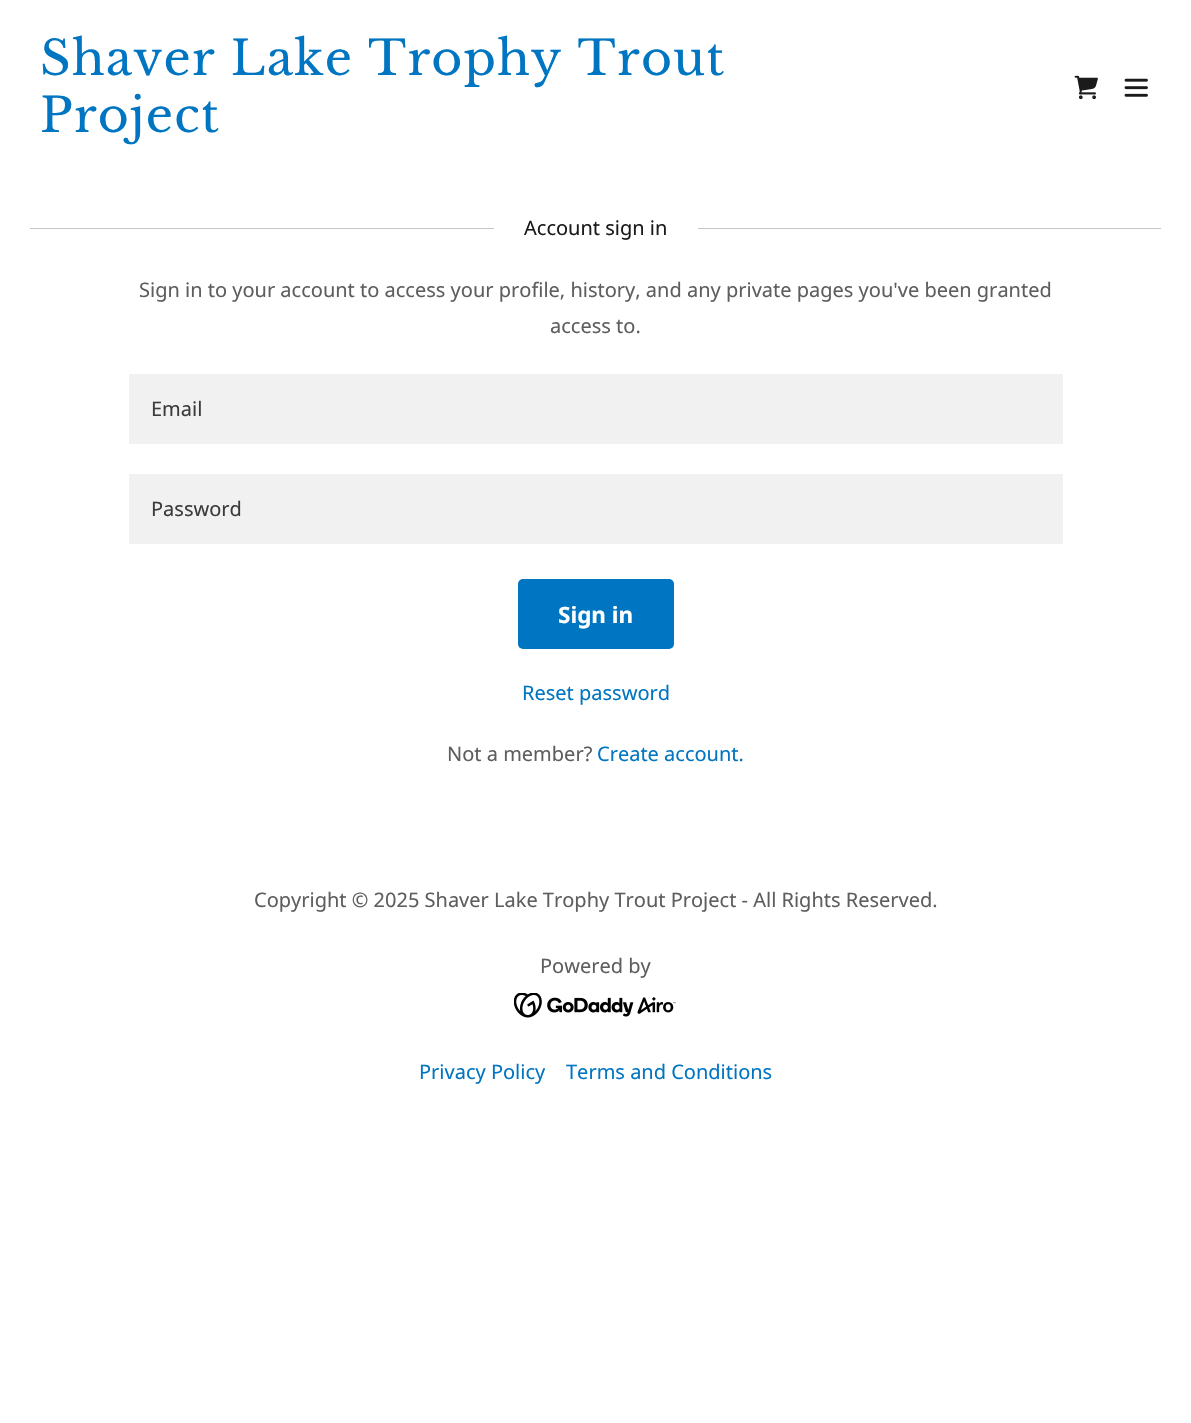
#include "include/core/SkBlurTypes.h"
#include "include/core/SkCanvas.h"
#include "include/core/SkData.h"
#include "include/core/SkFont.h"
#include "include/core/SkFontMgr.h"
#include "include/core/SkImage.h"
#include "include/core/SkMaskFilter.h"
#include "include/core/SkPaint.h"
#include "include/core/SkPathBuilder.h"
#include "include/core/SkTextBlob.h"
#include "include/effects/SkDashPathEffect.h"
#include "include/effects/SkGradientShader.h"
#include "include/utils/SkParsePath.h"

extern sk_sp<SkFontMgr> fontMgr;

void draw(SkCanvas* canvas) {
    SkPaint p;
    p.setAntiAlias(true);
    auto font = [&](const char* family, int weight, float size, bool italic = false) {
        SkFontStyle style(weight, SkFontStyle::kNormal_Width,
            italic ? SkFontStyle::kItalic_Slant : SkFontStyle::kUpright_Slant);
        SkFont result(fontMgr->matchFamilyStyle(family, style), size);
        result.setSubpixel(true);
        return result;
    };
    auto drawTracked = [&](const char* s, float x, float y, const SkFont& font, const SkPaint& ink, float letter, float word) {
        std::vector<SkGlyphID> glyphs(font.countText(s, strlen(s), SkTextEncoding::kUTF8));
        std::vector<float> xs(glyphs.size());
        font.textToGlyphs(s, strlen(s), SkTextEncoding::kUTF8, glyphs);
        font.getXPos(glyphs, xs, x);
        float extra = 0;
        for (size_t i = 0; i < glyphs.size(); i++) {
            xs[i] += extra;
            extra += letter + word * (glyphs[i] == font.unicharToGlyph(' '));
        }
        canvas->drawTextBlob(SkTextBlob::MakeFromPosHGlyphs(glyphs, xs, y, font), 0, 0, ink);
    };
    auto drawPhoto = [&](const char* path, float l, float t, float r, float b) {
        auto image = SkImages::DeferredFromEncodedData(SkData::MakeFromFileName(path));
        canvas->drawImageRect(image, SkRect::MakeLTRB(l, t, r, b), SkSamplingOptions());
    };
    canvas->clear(0xFFFFFFFF);
    auto font1 = font("Libre Baskerville", 400, 47.5f);
    p.setColor(0xFF0075C1);
    drawTracked("Shaver Lake Trophy Trout", 40, 75, font1, p, 1.25f, 0);
    drawTracked("Project", 40, 132, font1, p, 1.25f, 0);
    drawPhoto("media/1.png", 1074, 75, 1098, 100);
    drawPhoto("media/2.png", 1124, 78, 1148, 97);
    p.setColor(0xFFC6C6C6);
    canvas->drawRect(SkRect::MakeLTRB(30, 228, 494, 229), p);
    auto font2 = font("Noto Sans", 400, 20);
    p.setColor(0xFF1B1B1B);
    canvas->drawString("Account sign in", 524, 235, font2, p);
    p.setColor(0xFFC6C6C6);
    canvas->drawRect(SkRect::MakeLTRB(698, 228, 1161, 229), p);
    p.setColor(0xFF5E5E5E);
    canvas->drawString("Sign in to your account to access your profile, history, and any private pages you've been granted", 139, 297, font2, p);
    canvas->drawString("access to.", 550, 333, font2, p);
    p.setColor(0xFFF1F1F1);
    canvas->drawRect(SkRect::MakeLTRB(129, 374, 1063, 444), p);
    p.setColor(0xFF3B3B3B);
    canvas->drawString("Email", 151, 416, font2, p);
    p.setColor(0xFFF1F1F1);
    canvas->drawRect(SkRect::MakeLTRB(129, 474, 1063, 544), p);
    p.setColor(0xFF3B3B3B);
    canvas->drawString("Password", 151, 516, font2, p);
    p.setColor(0xFF0075C1);
    canvas->drawRoundRect(SkRect::MakeLTRB(518, 579, 674, 649), 5, 5, p);
    auto font3 = font("Noto Sans", 700, 22.5f);
    p.setColor(0xFFFFFFFF);
    canvas->drawString("Sign in", 558, 623, font3, p);
    p.setColor(0xFF0075C1);
    canvas->drawString("Reset password", 522, 700, font2, p);
    p.setColor(0xFF5E5E5E);
    canvas->drawString("Not a member?", 447, 761, font2, p);
    p.setColor(0xFF0075C1);
    canvas->drawString("Create account.", 597, 761, font2, p);
    p.setColor(0xFF5E5E5E);
    canvas->drawString("Copyright © 2025 Shaver Lake Trophy Trout Project - All Rights Reserved.", 254, 907, font2, p);
    canvas->drawString("Powered by", 540, 973, font2, p);
    drawPhoto("media/3.png", 514, 993, 676, 1018);
    p.setColor(0xFF0075C1);
    canvas->drawString("Privacy Policy", 419, 1079, font2, p);
    canvas->drawString("Terms and Conditions", 566, 1079, font2, p);
}
